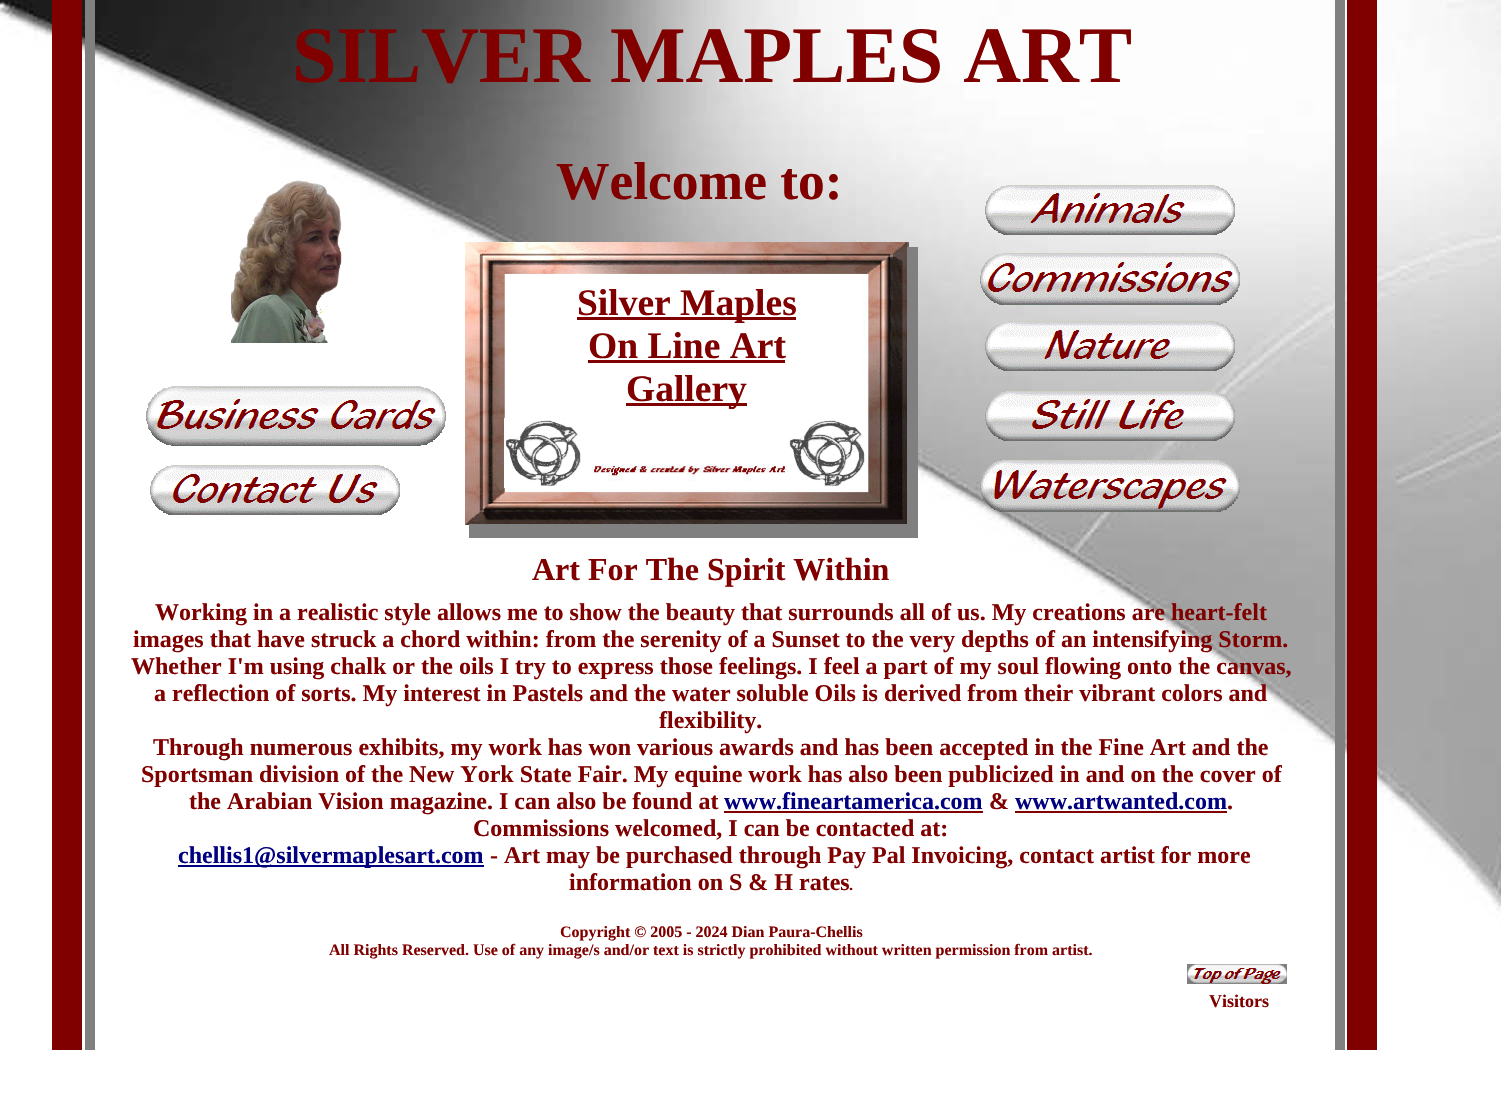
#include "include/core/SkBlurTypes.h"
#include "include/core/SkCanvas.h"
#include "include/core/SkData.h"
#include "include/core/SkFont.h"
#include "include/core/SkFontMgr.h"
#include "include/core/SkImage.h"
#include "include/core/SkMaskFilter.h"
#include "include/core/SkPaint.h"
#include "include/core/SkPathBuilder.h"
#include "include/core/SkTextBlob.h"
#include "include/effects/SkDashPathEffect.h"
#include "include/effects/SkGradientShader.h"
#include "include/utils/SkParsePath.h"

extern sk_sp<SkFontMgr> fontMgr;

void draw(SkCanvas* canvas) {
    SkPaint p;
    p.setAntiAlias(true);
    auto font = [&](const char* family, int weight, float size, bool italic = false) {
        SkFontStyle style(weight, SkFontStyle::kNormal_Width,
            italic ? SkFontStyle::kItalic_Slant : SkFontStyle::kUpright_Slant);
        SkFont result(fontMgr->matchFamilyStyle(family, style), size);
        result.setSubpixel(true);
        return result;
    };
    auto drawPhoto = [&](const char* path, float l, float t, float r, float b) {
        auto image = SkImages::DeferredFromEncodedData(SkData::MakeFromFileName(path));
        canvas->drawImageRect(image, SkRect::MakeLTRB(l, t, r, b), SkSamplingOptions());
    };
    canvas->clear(0xFFFFFFFF);
    drawPhoto("media/1.png", 0, 0, 1501, 1116);
    p.setColor(0xFF800000);
    canvas->drawRect(SkRect::MakeLTRB(52, 0, 82, 1050), p);
    p.setColor(0xFF808080);
    canvas->drawRect(SkRect::MakeLTRB(85, 0, 95, 1050), p);
    auto font1 = font("Liberation Serif", 700, 80);
    p.setColor(0xFF800000);
    canvas->drawString("SILVER MAPLES ART", 292, 82, font1, p);
    p.setColor(0xFF808080);
    canvas->drawRect(SkRect::MakeLTRB(1335, 0, 1345, 1050), p);
    p.setColor(0xFF800000);
    canvas->drawRect(SkRect::MakeLTRB(1347, 0, 1377, 1050), p);
    drawPhoto("media/2.png", 231, 180, 342, 343);
    auto font2 = font("Liberation Serif", 700, 53.5f);
    canvas->drawString("Welcome to:", 556, 199, font2, p);
    drawPhoto("media/3.png", 985, 185, 1235, 235);
    drawPhoto("media/4.png", 465, 242, 909, 525);
    p.setColor(0xFF808080);
    canvas->drawRect(SkRect::MakeLTRB(907, 247, 918, 538), p);
    drawPhoto("media/5.png", 980, 253, 1240, 305);
    p.setColor(0xFF800000);
    canvas->drawRect(SkRect::MakeLTRB(577, 317, 796, 320), p);
    auto font3 = font("Liberation Serif", 700, 37.5f);
    canvas->drawString("Silver Maples", 577, 315, font3, p);
    canvas->drawString("On Line Art", 588, 358, font3, p);
    canvas->drawRect(SkRect::MakeLTRB(588, 360, 785, 363), p);
    canvas->drawRect(SkRect::MakeLTRB(626, 403, 747, 406), p);
    canvas->drawString("Gallery", 626, 401, font3, p);
    drawPhoto("media/6.png", 985, 321, 1235, 371);
    drawPhoto("media/7.png", 146, 386, 446, 446);
    drawPhoto("media/8.png", 504, 418, 581, 488);
    drawPhoto("media/9.png", 788, 418, 865, 487);
    drawPhoto("media/10.png", 985, 391, 1235, 441);
    drawPhoto("media/11.png", 150, 465, 400, 515);
    drawPhoto("media/12.png", 980, 460, 1240, 512);
    p.setColor(0xFF808080);
    canvas->drawRect(SkRect::MakeLTRB(469, 524, 907, 538), p);
    auto font4 = font("Liberation Serif", 700, 32);
    p.setColor(0xFF800000);
    canvas->drawString("Art For The Spirit Within", 532, 580, font4, p);
    auto font5 = font("Liberation Serif", 700, 24);
    {
        const struct { const char* s; float x, y; } items[] = {
            {"Working in a realistic style allows me to show the beauty that surrounds all of us. My creations are heart-felt", 155, 620},
            {"images that have struck a chord within: from the serenity of a Sunset to the very depths of an intensifying Storm.", 133, 647},
            {"Whether I'm using chalk or the oils I try to express those feelings. I feel a part of my soul flowing onto the canvas,", 131, 674},
            {"a reflection of sorts. My interest in Pastels and the water soluble Oils is derived from their vibrant colors and", 154, 701},
            {"flexibility.", 659, 728},
            {"Through numerous exhibits, my work has won various awards and has been accepted in the Fine Art and the", 153, 755},
            {"Sportsman division of the New York State Fair. My equine work has also been publicized in and on the cover of", 141, 782},
            {"the Arabian Vision magazine. I can also be found at", 189, 809},
        };
        for (auto [s, x, y] : items) {
            canvas->drawString(s, x, y, font5, p);
        }
    }
    canvas->drawRect(SkRect::MakeLTRB(724, 811, 983, 813), p);
    p.setColor(0xFF000080);
    canvas->drawString("www.fineartamerica.com", 724, 809, font5, p);
    p.setColor(0xFF800000);
    canvas->drawString("&", 989, 809, font5, p);
    p.setColor(0xFF000080);
    canvas->drawString("www.artwanted.com", 1015, 809, font5, p);
    p.setColor(0xFF800000);
    canvas->drawString(".", 1227, 809, font5, p);
    canvas->drawRect(SkRect::MakeLTRB(1015, 811, 1227, 813), p);
    canvas->drawString("Commissions welcomed, I can be contacted at:", 473, 836, font5, p);
    p.setColor(0xFF000080);
    canvas->drawRect(SkRect::MakeLTRB(178, 865, 484, 867), p);
    canvas->drawString("chellis1@silvermaplesart.com", 178, 863, font5, p);
    p.setColor(0xFF800000);
    canvas->drawString("- Art may be purchased through Pay Pal Invoicing, contact artist for more", 490, 863, font5, p);
    canvas->drawString("information on S & H rates", 569, 890, font5, p);
    auto font6 = font("Liberation Serif", 700, 16);
    {
        const struct { const char* s; float x, y; } items[] = {
            {".", 849, 890},
            {"Copyright © 2005 - 2024 Dian Paura-Chellis", 560, 937},
            {"All Rights Reserved. Use of any image/s and/or text is strictly prohibited without written permission from artist.", 329, 955},
        };
        for (auto [s, x, y] : items) {
            canvas->drawString(s, x, y, font6, p);
        }
    }
    drawPhoto("media/13.png", 1187, 964, 1287, 984);
    auto font7 = font("Liberation Serif", 700, 18);
    canvas->drawString("Visitors", 1209, 1007, font7, p);
}
